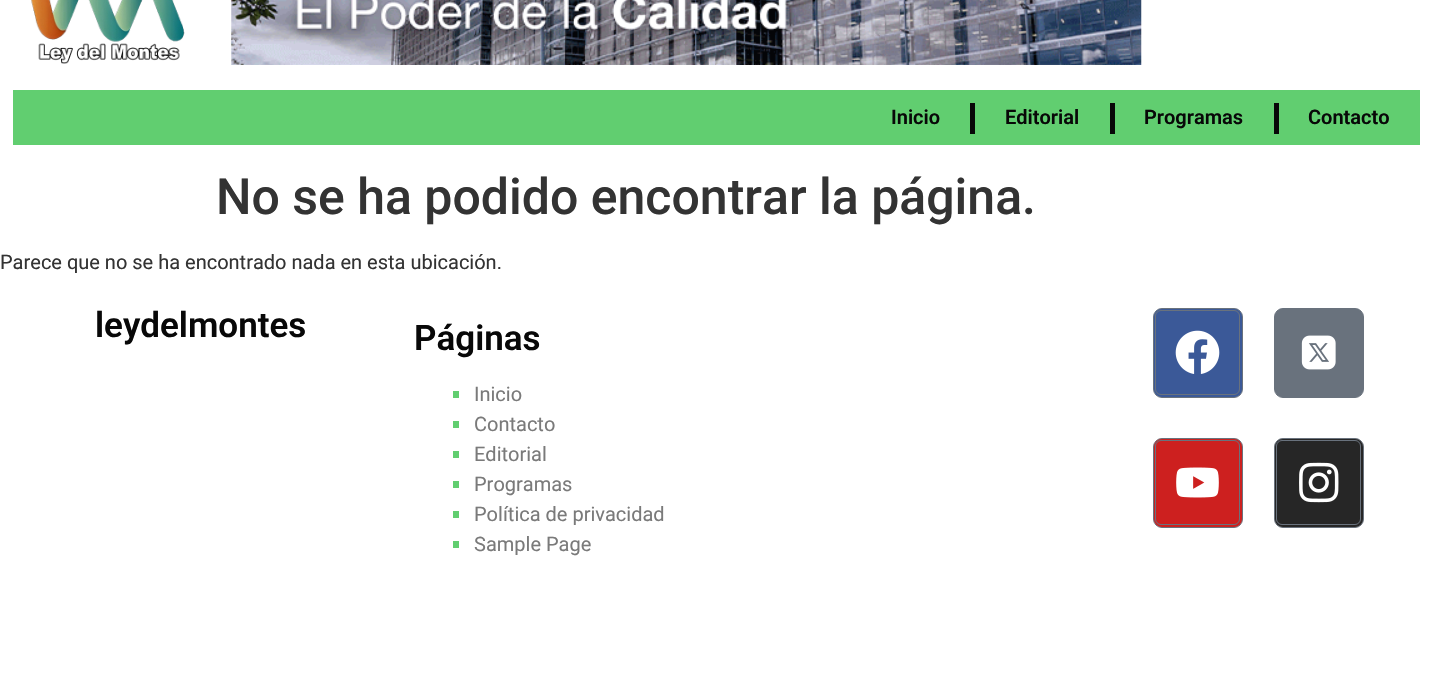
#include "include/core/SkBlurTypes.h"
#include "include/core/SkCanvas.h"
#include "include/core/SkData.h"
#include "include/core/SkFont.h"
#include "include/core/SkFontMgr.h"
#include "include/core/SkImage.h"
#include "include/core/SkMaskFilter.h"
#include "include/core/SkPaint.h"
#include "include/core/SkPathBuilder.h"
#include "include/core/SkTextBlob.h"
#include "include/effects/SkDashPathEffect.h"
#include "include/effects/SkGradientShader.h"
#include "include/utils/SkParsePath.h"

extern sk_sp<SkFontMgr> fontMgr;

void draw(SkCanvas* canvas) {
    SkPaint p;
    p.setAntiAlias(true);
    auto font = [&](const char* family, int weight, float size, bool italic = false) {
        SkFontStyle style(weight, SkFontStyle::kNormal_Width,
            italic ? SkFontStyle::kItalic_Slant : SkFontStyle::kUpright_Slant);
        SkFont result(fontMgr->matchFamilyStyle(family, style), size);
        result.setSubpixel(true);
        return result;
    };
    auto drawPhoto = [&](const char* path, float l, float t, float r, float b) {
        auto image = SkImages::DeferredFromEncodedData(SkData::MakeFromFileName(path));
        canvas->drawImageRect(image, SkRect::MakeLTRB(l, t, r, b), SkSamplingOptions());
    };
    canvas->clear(0xFFFFFFFF);
    drawPhoto("media/1.png", 31, 0, 185, 64);
    drawPhoto("media/2.png", 231, 0, 1142, 65);
    p.setColor(0xFF61CE70);
    canvas->drawRect(SkRect::MakeLTRB(13, 90, 1420, 145), p);
    auto font1 = font("Roboto", 600, 20);
    p.setColor(0xFF080808);
    canvas->drawString("Inicio", 891, 124, font1, p);
    canvas->drawRect(SkRect::MakeLTRB(970, 103, 975, 134), p);
    canvas->drawString("Editorial", 1005, 124, font1, p);
    canvas->drawRect(SkRect::MakeLTRB(1110, 103, 1115, 134), p);
    canvas->drawString("Programas", 1144, 124, font1, p);
    canvas->drawRect(SkRect::MakeLTRB(1274, 103, 1279, 134), p);
    canvas->drawString("Contacto", 1308, 124, font1, p);
    auto font2 = font("Roboto", 500, 50);
    p.setColor(0xFF333333);
    canvas->drawString("No se ha podido encontrar la página.", 216, 214, font2, p);
    auto font3 = font("Roboto", 400, 20);
    canvas->drawString("Parece que no se ha encontrado nada en esta ubicación.", 0, 269, font3, p);
    auto font4 = font("Roboto", 600, 35);
    p.setColor(0xFF080808);
    canvas->drawString("leydelmontes", 95, 337, font4, p);
    canvas->drawString("Páginas", 414, 350, font4, p);
    p.setColor(0xFF61CE70);
    canvas->drawRect(SkRect::MakeLTRB(453, 391, 459, 398), p);
    p.setColor(0xFF7A7A7A);
    canvas->drawString("Inicio", 474, 401, font3, p);
    p.setColor(0xFF61CE70);
    canvas->drawRect(SkRect::MakeLTRB(453, 421, 459, 428), p);
    p.setColor(0xFF7A7A7A);
    canvas->drawString("Contacto", 474, 431, font3, p);
    p.setColor(0xFF61CE70);
    canvas->drawRect(SkRect::MakeLTRB(453, 451, 459, 458), p);
    p.setColor(0xFF7A7A7A);
    canvas->drawString("Editorial", 474, 461, font3, p);
    p.setColor(0xFF61CE70);
    canvas->drawRect(SkRect::MakeLTRB(453, 481, 459, 488), p);
    p.setColor(0xFF7A7A7A);
    canvas->drawString("Programas", 474, 491, font3, p);
    p.setColor(0xFF61CE70);
    canvas->drawRect(SkRect::MakeLTRB(453, 511, 459, 518), p);
    p.setColor(0xFF7A7A7A);
    canvas->drawString("Política de privacidad", 474, 521, font3, p);
    p.setColor(0xFF61CE70);
    canvas->drawRect(SkRect::MakeLTRB(453, 541, 459, 548), p);
    p.setColor(0xFF7A7A7A);
    canvas->drawString("Sample Page", 474, 551, font3, p);
    p.setColor(0xFF3B5998);
    canvas->drawRoundRect(SkRect::MakeLTRB(1153.5f, 308.5f, 1242.5f, 397.5f), 8.5f, 8.5f, p);
    p.setStyle(SkPaint::kStroke_Style);
    p.setStrokeWidth(1);
    p.setColor(0xFF69727D);
    canvas->drawRoundRect(SkRect::MakeLTRB(1153.5f, 308.5f, 1242.5f, 397.5f), 8.5f, 8.5f, p);
    canvas->drawRoundRect(SkRect::MakeLTRB(1155.5f, 310.5f, 1239.5f, 394.5f), 5.5f, 5.5f, p);
    drawPhoto("media/3.png", 1175, 330, 1220, 374);
    p.setStyle(SkPaint::kFill_Style);
    canvas->drawRoundRect(SkRect::MakeLTRB(1274.5f, 308.5f, 1363.5f, 397.5f), 8.5f, 8.5f, p);
    p.setStyle(SkPaint::kStroke_Style);
    canvas->drawRoundRect(SkRect::MakeLTRB(1274.5f, 308.5f, 1363.5f, 397.5f), 8.5f, 8.5f, p);
    drawPhoto("media/4.png", 1301, 335, 1336, 370);
    p.setStyle(SkPaint::kFill_Style);
    p.setColor(0xFFCD201F);
    canvas->drawRoundRect(SkRect::MakeLTRB(1153.5f, 438.5f, 1242.5f, 527.5f), 8.5f, 8.5f, p);
    p.setStyle(SkPaint::kStroke_Style);
    p.setColor(0xFF69727D);
    canvas->drawRoundRect(SkRect::MakeLTRB(1153.5f, 438.5f, 1242.5f, 527.5f), 8.5f, 8.5f, p);
    canvas->drawRoundRect(SkRect::MakeLTRB(1155.5f, 440.5f, 1239.5f, 524.5f), 5.5f, 5.5f, p);
    drawPhoto("media/5.png", 1176, 467, 1219, 498);
    p.setStyle(SkPaint::kFill_Style);
    p.setColor(0xFF262626);
    canvas->drawRoundRect(SkRect::MakeLTRB(1274.5f, 438.5f, 1363.5f, 527.5f), 8.5f, 8.5f, p);
    p.setStyle(SkPaint::kStroke_Style);
    p.setColor(0xFF69727D);
    canvas->drawRoundRect(SkRect::MakeLTRB(1274.5f, 438.5f, 1363.5f, 527.5f), 8.5f, 8.5f, p);
    canvas->drawRoundRect(SkRect::MakeLTRB(1276.5f, 440.5f, 1360.5f, 524.5f), 5.5f, 5.5f, p);
    drawPhoto("media/6.png", 1299, 462, 1339, 503);
}
